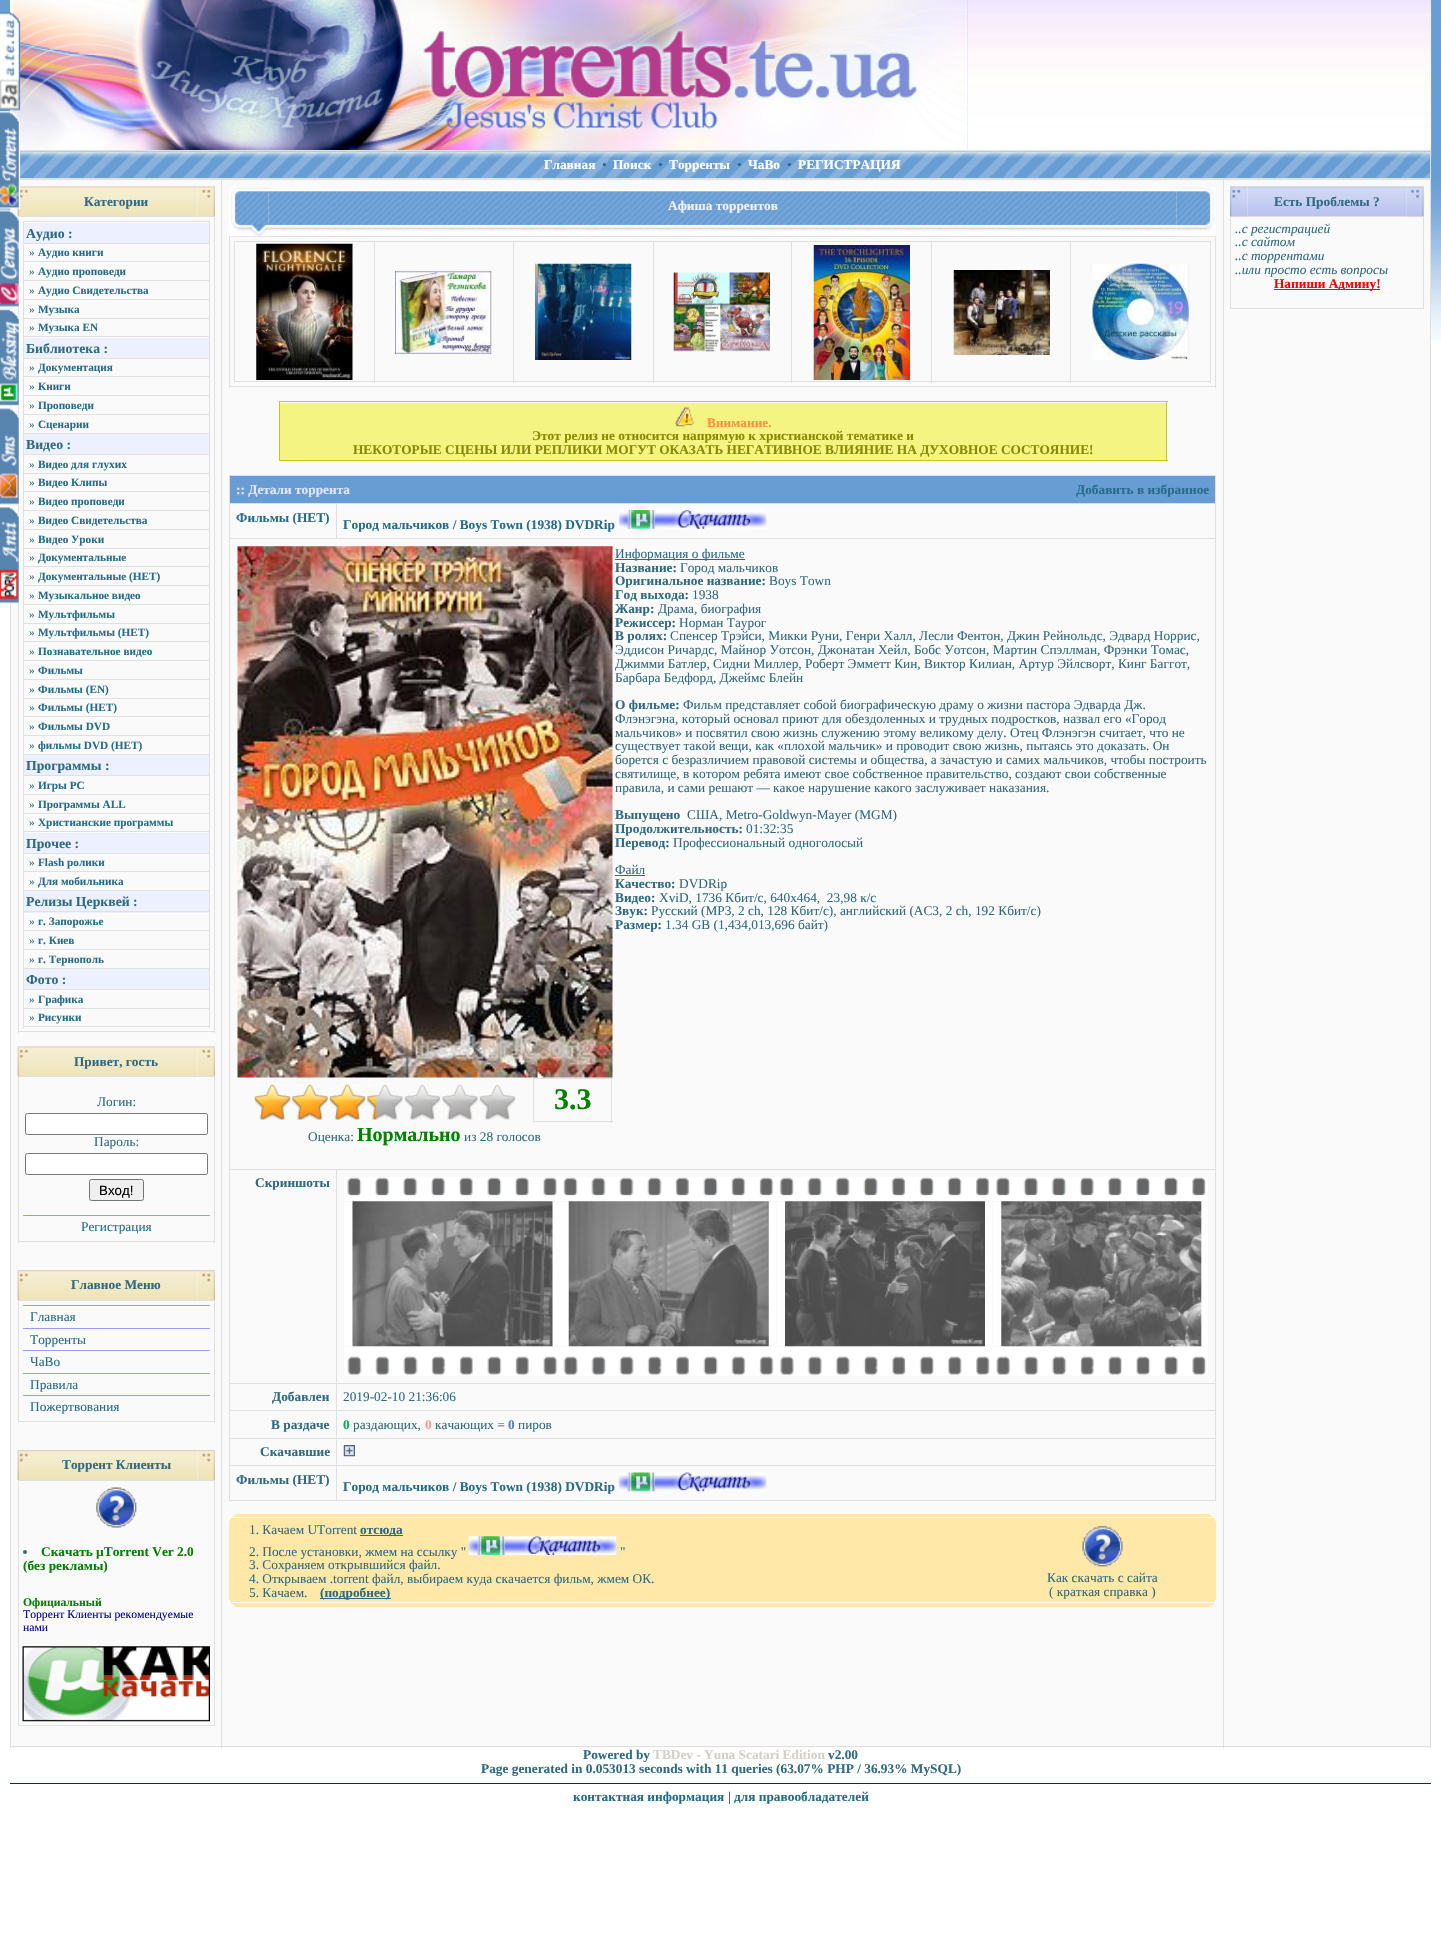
#include "include/core/SkBlurTypes.h"
#include "include/core/SkCanvas.h"
#include "include/core/SkData.h"
#include "include/core/SkFont.h"
#include "include/core/SkFontMgr.h"
#include "include/core/SkImage.h"
#include "include/core/SkMaskFilter.h"
#include "include/core/SkPaint.h"
#include "include/core/SkPathBuilder.h"
#include "include/core/SkTextBlob.h"
#include "include/effects/SkDashPathEffect.h"
#include "include/effects/SkGradientShader.h"
#include "include/utils/SkParsePath.h"

extern sk_sp<SkFontMgr> fontMgr;

void draw(SkCanvas* canvas) {
    SkPaint p;
    p.setAntiAlias(true);
    auto font = [&](const char* family, int weight, float size, bool italic = false) {
        SkFontStyle style(weight, SkFontStyle::kNormal_Width,
            italic ? SkFontStyle::kItalic_Slant : SkFontStyle::kUpright_Slant);
        SkFont result(fontMgr->matchFamilyStyle(family, style), size);
        result.setSubpixel(true);
        return result;
    };
    auto drawPhoto = [&](const char* path, float l, float t, float r, float b) {
        auto image = SkImages::DeferredFromEncodedData(SkData::MakeFromFileName(path));
        canvas->drawImageRect(image, SkRect::MakeLTRB(l, t, r, b), SkSamplingOptions());
    };
    canvas->clear(0xFFFFFFFF);
    drawPhoto("media/1.png", 0, 0, 1441, 340);
    drawPhoto("media/2.png", 967, 0, 968, 150);
    drawPhoto("media/4.png", 967, 0, 1432, 150);
    drawPhoto("media/3.png", 10, 0, 968, 150);
    drawPhoto("media/5.png", 0, 12, 21, 111);
    drawPhoto("media/11.png", 19, 151, 1432, 179);
    {
        const struct { float l, t, r, b; SkColor color; } items[] = {
            {19, 150, 1431, 151, 0xFFE0E0E0},
            {1430, 150, 1431, 179, 0xFFE0E0E0},
            {19, 178, 1431, 179, 0xFFE0E0E0},
            {11, 180, 1430, 1748, 0xFFFAFAFA},
            {1223, 179, 1431, 180, 0xFFE0E0E0},
            {1430, 179, 1431, 1748, 0xFFE0E0E0},
            {1223, 1746, 1431, 1747, 0xFFE0E0E0},
            {1223, 179, 1224, 1748, 0xFFE0E0E0},
            {221, 179, 1224, 180, 0xFFE0E0E0},
            {221, 1746, 1224, 1747, 0xFFE0E0E0},
            {221, 179, 222, 1748, 0xFFE0E0E0},
            {19, 179, 223, 180, 0xFFE0E0E0},
            {10, 1746, 223, 1747, 0xFFE0E0E0},
            {10, 208, 11, 1748, 0xFFE0E0E0},
            {18, 216, 215, 217, 0xFFE0E0E0},
            {214, 216, 215, 1033, 0xFFE0E0E0},
            {18, 1031, 215, 1032, 0xFFE0E0E0},
            {18, 216, 19, 1033, 0xFFE0E0E0},
        };
        for (auto [l, t, r, b, color] : items) {
            p.setColor(color);
            canvas->drawRect(SkRect::MakeLTRB(l, t, r, b), p);
        }
    }
    drawPhoto("media/12.png", 17, 186, 35, 217);
    drawPhoto("media/6.png", 0, 111, 21, 210);
    drawPhoto("media/7.png", 0, 209, 20, 308);
    drawPhoto("media/8.png", 0, 308, 21, 407);
    drawPhoto("media/9.png", 0, 407, 20, 506);
    drawPhoto("media/10.png", 0, 506, 20, 604);
    auto font1 = font("Liberation Serif", 700, 13.33f);
    p.setColor(0xFFFFFFFF);
    canvas->drawString("Главная", 544, 169, font1, p);
    auto font2 = font("Liberation Serif", 400, 13.33f);
    p.setColor(0xFF306A82);
    canvas->drawString("•", 602, 169, font2, p);
    p.setColor(0xFFFFFFFF);
    canvas->drawString("Поиск", 613, 169, font1, p);
    p.setColor(0xFF306A82);
    canvas->drawString("•", 658, 169, font2, p);
    p.setColor(0xFFFFFFFF);
    canvas->drawString("Торренты", 669, 169, font1, p);
    p.setColor(0xFF306A82);
    canvas->drawString("•", 737, 169, font2, p);
    p.setColor(0xFFFFFFFF);
    canvas->drawString("ЧаВо", 748, 169, font1, p);
    p.setColor(0xFF306A82);
    canvas->drawString("•", 787, 169, font2, p);
    p.setColor(0xFFFFFFFF);
    canvas->drawString("РЕГИСТРАЦИЯ", 798, 169, font1, p);
    drawPhoto("media/13.png", 35, 186, 198, 216);
    p.setColor(0xFF306A82);
    canvas->drawString("Категории", 84, 206, font1, p);
    drawPhoto("media/14.png", 197, 186, 215, 217);
    {
        const struct { float l, t, r, b; SkColor color; } items[] = {
            {24, 223, 209, 243, 0xFFECF0FF},
            {23, 221, 210, 222, 0xFFE0E0E0},
            {23, 243, 210, 244, 0xFFE0E0E0},
            {23, 261, 210, 262, 0xFFE0E0E0},
            {23, 280, 210, 281, 0xFFE0E0E0},
            {23, 299, 210, 300, 0xFFE0E0E0},
            {23, 318, 210, 319, 0xFFE0E0E0},
            {23, 336, 210, 337, 0xFFE0E0E0},
            {23, 358, 210, 359, 0xFFE0E0E0},
            {23, 376, 210, 377, 0xFFE0E0E0},
            {23, 395, 210, 396, 0xFFE0E0E0},
            {23, 414, 210, 415, 0xFFE0E0E0},
            {23, 433, 210, 434, 0xFFE0E0E0},
            {23, 454, 210, 455, 0xFFE0E0E0},
            {23, 473, 210, 474, 0xFFE0E0E0},
            {23, 491, 210, 492, 0xFFE0E0E0},
            {23, 510, 210, 511, 0xFFE0E0E0},
            {23, 529, 210, 530, 0xFFE0E0E0},
            {23, 548, 210, 549, 0xFFE0E0E0},
            {23, 566, 210, 567, 0xFFE0E0E0},
            {23, 585, 210, 586, 0xFFE0E0E0},
            {23, 604, 210, 605, 0xFFE0E0E0},
            {23, 623, 210, 624, 0xFFE0E0E0},
            {23, 641, 210, 642, 0xFFE0E0E0},
            {23, 660, 210, 661, 0xFFE0E0E0},
            {23, 679, 210, 680, 0xFFE0E0E0},
            {23, 698, 210, 699, 0xFFE0E0E0},
            {23, 716, 210, 717, 0xFFE0E0E0},
            {23, 735, 210, 736, 0xFFE0E0E0},
            {23, 754, 210, 755, 0xFFE0E0E0},
            {23, 775, 210, 776, 0xFFE0E0E0},
            {23, 794, 210, 795, 0xFFE0E0E0},
            {23, 813, 210, 814, 0xFFE0E0E0},
            {23, 831, 210, 832, 0xFFE0E0E0},
            {23, 853, 210, 854, 0xFFE0E0E0},
            {23, 871, 210, 872, 0xFFE0E0E0},
            {23, 890, 210, 891, 0xFFE0E0E0},
            {24, 891, 209, 913, 0xFFECF0FF},
            {23, 911, 210, 912, 0xFFE0E0E0},
            {23, 930, 210, 931, 0xFFE0E0E0},
            {23, 949, 210, 950, 0xFFE0E0E0},
            {23, 968, 210, 969, 0xFFE0E0E0},
            {23, 989, 210, 990, 0xFFE0E0E0},
            {23, 1008, 210, 1009, 0xFFE0E0E0},
            {209, 1008, 210, 1028, 0xFFE0E0E0},
            {209, 989, 210, 1009, 0xFFE0E0E0},
            {209, 968, 210, 990, 0xFFE0E0E0},
            {209, 949, 210, 969, 0xFFE0E0E0},
            {209, 930, 210, 950, 0xFFE0E0E0},
            {209, 911, 210, 931, 0xFFE0E0E0},
            {209, 890, 210, 913, 0xFFE0E0E0},
            {209, 871, 210, 891, 0xFFE0E0E0},
            {209, 853, 210, 873, 0xFFE0E0E0},
            {209, 831, 210, 854, 0xFFE0E0E0},
            {209, 813, 210, 833, 0xFFE0E0E0},
            {209, 794, 210, 814, 0xFFE0E0E0},
            {209, 775, 210, 795, 0xFFE0E0E0},
            {209, 754, 210, 776, 0xFFE0E0E0},
            {209, 735, 210, 755, 0xFFE0E0E0},
            {209, 716, 210, 736, 0xFFE0E0E0},
            {209, 698, 210, 718, 0xFFE0E0E0},
            {209, 679, 210, 699, 0xFFE0E0E0},
            {209, 660, 210, 680, 0xFFE0E0E0},
            {209, 641, 210, 661, 0xFFE0E0E0},
            {209, 623, 210, 643, 0xFFE0E0E0},
            {209, 604, 210, 624, 0xFFE0E0E0},
            {209, 585, 210, 605, 0xFFE0E0E0},
            {209, 566, 210, 586, 0xFFE0E0E0},
            {209, 548, 210, 568, 0xFFE0E0E0},
            {209, 529, 210, 549, 0xFFE0E0E0},
            {209, 510, 210, 530, 0xFFE0E0E0},
            {209, 491, 210, 511, 0xFFE0E0E0},
            {209, 473, 210, 493, 0xFFE0E0E0},
            {209, 454, 210, 474, 0xFFE0E0E0},
            {209, 433, 210, 455, 0xFFE0E0E0},
            {209, 414, 210, 434, 0xFFE0E0E0},
            {209, 395, 210, 415, 0xFFE0E0E0},
            {209, 376, 210, 396, 0xFFE0E0E0},
            {209, 358, 210, 378, 0xFFE0E0E0},
            {209, 336, 210, 359, 0xFFE0E0E0},
            {209, 318, 210, 338, 0xFFE0E0E0},
            {209, 299, 210, 319, 0xFFE0E0E0},
            {209, 280, 210, 300, 0xFFE0E0E0},
            {209, 261, 210, 281, 0xFFE0E0E0},
            {209, 243, 210, 263, 0xFFE0E0E0},
            {209, 221, 210, 244, 0xFFE0E0E0},
            {23, 1026, 210, 1027, 0xFFE0E0E0},
            {23, 1008, 24, 1028, 0xFFE0E0E0},
            {23, 989, 24, 1009, 0xFFE0E0E0},
            {23, 968, 24, 990, 0xFFE0E0E0},
            {23, 949, 24, 969, 0xFFE0E0E0},
            {23, 930, 24, 950, 0xFFE0E0E0},
            {23, 911, 24, 931, 0xFFE0E0E0},
            {23, 890, 24, 913, 0xFFE0E0E0},
            {23, 871, 24, 891, 0xFFE0E0E0},
            {23, 853, 24, 873, 0xFFE0E0E0},
            {23, 831, 24, 854, 0xFFE0E0E0},
            {23, 813, 24, 833, 0xFFE0E0E0},
            {23, 794, 24, 814, 0xFFE0E0E0},
            {23, 775, 24, 795, 0xFFE0E0E0},
            {23, 754, 24, 776, 0xFFE0E0E0},
            {23, 735, 24, 755, 0xFFE0E0E0},
            {23, 716, 24, 736, 0xFFE0E0E0},
            {23, 698, 24, 718, 0xFFE0E0E0},
            {23, 679, 24, 699, 0xFFE0E0E0},
            {23, 660, 24, 680, 0xFFE0E0E0},
            {23, 641, 24, 661, 0xFFE0E0E0},
            {23, 623, 24, 643, 0xFFE0E0E0},
            {23, 604, 24, 624, 0xFFE0E0E0},
            {23, 585, 24, 605, 0xFFE0E0E0},
            {23, 566, 24, 586, 0xFFE0E0E0},
            {23, 548, 24, 568, 0xFFE0E0E0},
            {23, 529, 24, 549, 0xFFE0E0E0},
            {23, 510, 24, 530, 0xFFE0E0E0},
            {23, 491, 24, 511, 0xFFE0E0E0},
            {23, 473, 24, 493, 0xFFE0E0E0},
            {23, 454, 24, 474, 0xFFE0E0E0},
            {23, 433, 24, 455, 0xFFE0E0E0},
            {23, 414, 24, 434, 0xFFE0E0E0},
            {23, 395, 24, 415, 0xFFE0E0E0},
            {23, 376, 24, 396, 0xFFE0E0E0},
            {23, 358, 24, 378, 0xFFE0E0E0},
            {23, 336, 24, 359, 0xFFE0E0E0},
            {23, 318, 24, 338, 0xFFE0E0E0},
            {23, 299, 24, 319, 0xFFE0E0E0},
            {23, 280, 24, 300, 0xFFE0E0E0},
            {23, 261, 24, 281, 0xFFE0E0E0},
            {23, 243, 24, 263, 0xFFE0E0E0},
            {23, 221, 24, 244, 0xFFE0E0E0},
        };
        for (auto [l, t, r, b, color] : items) {
            p.setColor(color);
            canvas->drawRect(SkRect::MakeLTRB(l, t, r, b), p);
        }
    }
    auto font3 = font("Liberation Serif", 700, 13.75f);
    p.setColor(0xFF306A82);
    canvas->drawString("Аудио :", 26, 238, font3, p);
    auto font4 = font("Liberation Serif", 400, 11.25f);
    canvas->drawString("»", 29, 256, font4, p);
    auto font5 = font("Liberation Serif", 700, 11.25f);
    p.setColor(0xFF266C8A);
    canvas->drawString("Аудио книги", 38, 256, font5, p);
    p.setColor(0xFF306A82);
    canvas->drawString("»", 29, 275, font4, p);
    p.setColor(0xFF266C8A);
    canvas->drawString("Аудио проповеди", 38, 275, font5, p);
    p.setColor(0xFF306A82);
    canvas->drawString("»", 29, 294, font4, p);
    p.setColor(0xFF266C8A);
    canvas->drawString("Аудио Свидетельства", 38, 294, font5, p);
    p.setColor(0xFF306A82);
    canvas->drawString("»", 29, 313, font4, p);
    p.setColor(0xFF266C8A);
    canvas->drawString("Музыка", 38, 313, font5, p);
    p.setColor(0xFF306A82);
    canvas->drawString("»", 29, 331, font4, p);
    p.setColor(0xFF266C8A);
    canvas->drawString("Музыка EN", 38, 331, font5, p);
    p.setColor(0xFFECF0FF);
    canvas->drawRect(SkRect::MakeLTRB(24, 338, 209, 358), p);
    p.setColor(0xFF306A82);
    canvas->drawString("Библиотека :", 26, 353, font3, p);
    canvas->drawString("»", 29, 371, font4, p);
    p.setColor(0xFF266C8A);
    canvas->drawString("Документация", 38, 371, font5, p);
    p.setColor(0xFF306A82);
    canvas->drawString("»", 29, 390, font4, p);
    p.setColor(0xFF266C8A);
    canvas->drawString("Книги", 38, 390, font5, p);
    p.setColor(0xFF306A82);
    canvas->drawString("»", 29, 409, font4, p);
    p.setColor(0xFF266C8A);
    canvas->drawString("Проповеди", 38, 409, font5, p);
    p.setColor(0xFF306A82);
    canvas->drawString("»", 29, 428, font4, p);
    p.setColor(0xFF266C8A);
    canvas->drawString("Сценарии", 38, 428, font5, p);
    p.setColor(0xFFECF0FF);
    canvas->drawRect(SkRect::MakeLTRB(24, 434, 209, 454), p);
    p.setColor(0xFF306A82);
    canvas->drawString("Видео :", 26, 449, font3, p);
    canvas->drawString("»", 29, 468, font4, p);
    p.setColor(0xFF266C8A);
    canvas->drawString("Видео для глухих", 38, 468, font5, p);
    p.setColor(0xFF306A82);
    canvas->drawString("»", 29, 486, font4, p);
    p.setColor(0xFF266C8A);
    canvas->drawString("Видео Клипы", 38, 486, font5, p);
    p.setColor(0xFF306A82);
    canvas->drawString("»", 29, 505, font4, p);
    p.setColor(0xFF266C8A);
    canvas->drawString("Видео проповеди", 38, 505, font5, p);
    p.setColor(0xFF306A82);
    canvas->drawString("»", 29, 524, font4, p);
    p.setColor(0xFF266C8A);
    canvas->drawString("Видео Свидетельства", 38, 524, font5, p);
    p.setColor(0xFF306A82);
    canvas->drawString("»", 29, 543, font4, p);
    p.setColor(0xFF266C8A);
    canvas->drawString("Видео Уроки", 38, 543, font5, p);
    p.setColor(0xFF306A82);
    canvas->drawString("»", 29, 561, font4, p);
    p.setColor(0xFF266C8A);
    canvas->drawString("Документальные", 38, 561, font5, p);
    p.setColor(0xFF306A82);
    canvas->drawString("»", 29, 580, font4, p);
    p.setColor(0xFF266C8A);
    canvas->drawString("Документальные (НЕТ)", 38, 580, font5, p);
    p.setColor(0xFF306A82);
    canvas->drawString("»", 29, 599, font4, p);
    p.setColor(0xFF266C8A);
    canvas->drawString("Музыкальное видео", 38, 599, font5, p);
    p.setColor(0xFF306A82);
    canvas->drawString("»", 29, 618, font4, p);
    p.setColor(0xFF266C8A);
    canvas->drawString("Мультфильмы", 38, 618, font5, p);
    p.setColor(0xFF306A82);
    canvas->drawString("»", 29, 636, font4, p);
    p.setColor(0xFF266C8A);
    canvas->drawString("Мультфильмы (НЕТ)", 38, 636, font5, p);
    p.setColor(0xFF306A82);
    canvas->drawString("»", 29, 655, font4, p);
    p.setColor(0xFF266C8A);
    canvas->drawString("Познавательное видео", 38, 655, font5, p);
    p.setColor(0xFF306A82);
    canvas->drawString("»", 29, 674, font4, p);
    p.setColor(0xFF266C8A);
    canvas->drawString("Фильмы", 38, 674, font5, p);
    p.setColor(0xFF306A82);
    canvas->drawString("»", 29, 693, font4, p);
    p.setColor(0xFF266C8A);
    canvas->drawString("Фильмы (EN)", 38, 693, font5, p);
    p.setColor(0xFF306A82);
    canvas->drawString("»", 29, 711, font4, p);
    p.setColor(0xFF266C8A);
    canvas->drawString("Фильмы (НЕТ)", 38, 711, font5, p);
    p.setColor(0xFF306A82);
    canvas->drawString("»", 29, 730, font4, p);
    p.setColor(0xFF266C8A);
    canvas->drawString("Фильмы DVD", 38, 730, font5, p);
    p.setColor(0xFF306A82);
    canvas->drawString("»", 29, 749, font4, p);
    p.setColor(0xFF266C8A);
    canvas->drawString("фильмы DVD (НЕТ)", 38, 749, font5, p);
    p.setColor(0xFFECF0FF);
    canvas->drawRect(SkRect::MakeLTRB(24, 755, 209, 775), p);
    p.setColor(0xFF306A82);
    canvas->drawString("Программы :", 26, 770, font3, p);
    canvas->drawString("»", 29, 789, font4, p);
    p.setColor(0xFF266C8A);
    canvas->drawString("Игры PC", 38, 789, font5, p);
    p.setColor(0xFF306A82);
    canvas->drawString("»", 29, 808, font4, p);
    p.setColor(0xFF266C8A);
    canvas->drawString("Программы ALL", 38, 808, font5, p);
    p.setColor(0xFF306A82);
    canvas->drawString("»", 29, 826, font4, p);
    p.setColor(0xFF266C8A);
    canvas->drawString("Христианские программы", 38, 826, font5, p);
    p.setColor(0xFFECF0FF);
    canvas->drawRect(SkRect::MakeLTRB(24, 833, 209, 853), p);
    p.setColor(0xFF306A82);
    canvas->drawString("Прочее :", 26, 848, font3, p);
    canvas->drawString("»", 29, 866, font4, p);
    p.setColor(0xFF266C8A);
    canvas->drawString("Flash ролики", 38, 866, font5, p);
    p.setColor(0xFF306A82);
    canvas->drawString("»", 29, 885, font4, p);
    p.setColor(0xFF266C8A);
    canvas->drawString("Для мобильника", 38, 885, font5, p);
    p.setColor(0xFF306A82);
    canvas->drawString("Релизы Церквей :", 26, 906, font3, p);
    canvas->drawString("»", 29, 925, font4, p);
    p.setColor(0xFF266C8A);
    canvas->drawString("г. Запорожье", 38, 925, font5, p);
    p.setColor(0xFF306A82);
    canvas->drawString("»", 29, 944, font4, p);
    p.setColor(0xFF266C8A);
    canvas->drawString("г. Киев", 38, 944, font5, p);
    p.setColor(0xFF306A82);
    canvas->drawString("»", 29, 963, font4, p);
    p.setColor(0xFF266C8A);
    canvas->drawString("г. Тернополь", 38, 963, font5, p);
    p.setColor(0xFFECF0FF);
    canvas->drawRect(SkRect::MakeLTRB(24, 969, 209, 989), p);
    p.setColor(0xFF306A82);
    canvas->drawString("Фото :", 26, 984, font3, p);
    canvas->drawString("»", 29, 1003, font4, p);
    p.setColor(0xFF266C8A);
    canvas->drawString("Графика", 38, 1003, font5, p);
    p.setColor(0xFF306A82);
    canvas->drawString("»", 29, 1021, font4, p);
    p.setColor(0xFF266C8A);
    canvas->drawString("Рисунки", 38, 1021, font5, p);
    {
        const struct { float l, t, r, b; SkColor color; } items[] = {
            {18, 1076, 215, 1077, 0xFFE0E0E0},
            {214, 1076, 215, 1243, 0xFFE0E0E0},
            {18, 1241, 215, 1242, 0xFFE0E0E0},
            {18, 1076, 19, 1243, 0xFFE0E0E0},
        };
        for (auto [l, t, r, b, color] : items) {
            p.setColor(color);
            canvas->drawRect(SkRect::MakeLTRB(l, t, r, b), p);
        }
    }
    drawPhoto("media/12.png", 17, 1046, 35, 1077);
    drawPhoto("media/13.png", 35, 1046, 198, 1076);
    p.setColor(0xFF306A82);
    canvas->drawString("Привет, гость", 74, 1066, font1, p);
    drawPhoto("media/14.png", 197, 1046, 215, 1077);
    canvas->drawString("Логин:", 97, 1106, font2, p);
    p.setColor(0xFFFFFFFF);
    canvas->drawRoundRect(SkRect::MakeLTRB(25.5f, 1113.5f, 207.5f, 1134.5f), 2, 2, p);
    p.setStyle(SkPaint::kStroke_Style);
    p.setStrokeWidth(1);
    p.setColor(0xFF767676);
    canvas->drawRoundRect(SkRect::MakeLTRB(25.5f, 1113.5f, 207.5f, 1134.5f), 2, 2, p);
    p.setStyle(SkPaint::kFill_Style);
    p.setColor(0xFF306A82);
    canvas->drawString("Пароль:", 94, 1146, font2, p);
    p.setColor(0xFFFFFFFF);
    canvas->drawRoundRect(SkRect::MakeLTRB(25.5f, 1153.5f, 207.5f, 1174.5f), 2, 2, p);
    p.setStyle(SkPaint::kStroke_Style);
    p.setColor(0xFF767676);
    canvas->drawRoundRect(SkRect::MakeLTRB(25.5f, 1153.5f, 207.5f, 1174.5f), 2, 2, p);
    p.setStyle(SkPaint::kFill_Style);
    p.setColor(0xFFEFEFEF);
    canvas->drawRoundRect(SkRect::MakeLTRB(89.5f, 1179.5f, 143.5f, 1200.5f), 2, 2, p);
    p.setStyle(SkPaint::kStroke_Style);
    p.setColor(0xFF767676);
    canvas->drawRoundRect(SkRect::MakeLTRB(89.5f, 1179.5f, 143.5f, 1200.5f), 2, 2, p);
    auto font6 = font("Liberation Sans", 400, 13.33f);
    p.setStyle(SkPaint::kFill_Style);
    p.setColor(0xFF000000);
    canvas->drawString("Вход!", 99, 1195, font6, p);
    p.setColor(0xFF9999FF);
    canvas->drawRect(SkRect::MakeLTRB(23, 1215, 210, 1216), p);
    p.setColor(0xFF266C8A);
    canvas->drawString("Регистрация", 81, 1231, font2, p);
    drawPhoto("media/15.png", 17, 1270, 35, 1300);
    drawPhoto("media/16.png", 35, 1270, 198, 1300);
    p.setColor(0xFF306A82);
    canvas->drawString("Главное Меню", 71, 1289, font1, p);
    drawPhoto("media/17.png", 197, 1270, 215, 1300);
    {
        const struct { float l, t, r, b; SkColor color; } items[] = {
            {18, 1300, 215, 1301, 0xFFE0E0E0},
            {214, 1300, 215, 1423, 0xFFE0E0E0},
            {18, 1421, 215, 1422, 0xFFE0E0E0},
            {18, 1300, 19, 1423, 0xFFE0E0E0},
            {23, 1305, 210, 1306, 0xFF9999FF},
        };
        for (auto [l, t, r, b, color] : items) {
            p.setColor(color);
            canvas->drawRect(SkRect::MakeLTRB(l, t, r, b), p);
        }
    }
    p.setColor(0xFF266C8A);
    canvas->drawString("Главная", 30, 1321, font2, p);
    p.setColor(0xFF9999FF);
    canvas->drawRect(SkRect::MakeLTRB(23, 1328, 210, 1329), p);
    p.setColor(0xFF266C8A);
    canvas->drawString("Торренты", 30, 1344, font2, p);
    p.setColor(0xFF9999FF);
    canvas->drawRect(SkRect::MakeLTRB(23, 1350, 210, 1351), p);
    p.setColor(0xFF266C8A);
    canvas->drawString("ЧаВо", 30, 1366, font2, p);
    p.setColor(0xFF9999FF);
    canvas->drawRect(SkRect::MakeLTRB(23, 1373, 210, 1374), p);
    p.setColor(0xFF266C8A);
    canvas->drawString("Правила", 30, 1389, font2, p);
    p.setColor(0xFF9999FF);
    canvas->drawRect(SkRect::MakeLTRB(23, 1395, 210, 1396), p);
    p.setColor(0xFF266C8A);
    canvas->drawString("Пожертвования", 30, 1411, font2, p);
    drawPhoto("media/15.png", 17, 1450, 35, 1480);
    drawPhoto("media/16.png", 35, 1450, 198, 1480);
    p.setColor(0xFF306A82);
    canvas->drawString("Торрент Клиенты", 62, 1469, font1, p);
    drawPhoto("media/17.png", 197, 1450, 215, 1480);
    {
        const struct { float l, t, r, b; SkColor color; } items[] = {
            {18, 1480, 215, 1481, 0xFFE0E0E0},
            {214, 1480, 215, 1726, 0xFFE0E0E0},
            {18, 1725, 215, 1726, 0xFFE0E0E0},
            {18, 1480, 19, 1726, 0xFFE0E0E0},
        };
        for (auto [l, t, r, b, color] : items) {
            p.setColor(color);
            canvas->drawRect(SkRect::MakeLTRB(l, t, r, b), p);
        }
    }
    drawPhoto("media/18.png", 96, 1487, 137, 1528);
    p.setColor(0xFF306A82);
    canvas->drawCircle(25, 1552, 2, p);
    p.setColor(0xFF008000);
    canvas->drawString("Скачать µTorrent Ver 2.0", 41, 1556, font1, p);
    canvas->drawString("(без рекламы)", 23, 1570, font1, p);
    auto font7 = font("Liberation Serif", 700, 11.7f);
    canvas->drawString("Официальный", 23, 1606, font7, p);
    auto font8 = font("Liberation Serif", 400, 11.7f);
    p.setColor(0xFF000099);
    canvas->drawString("Торрент Клиенты рекомендуемые", 23, 1618, font8, p);
    canvas->drawString("нами", 23, 1631, font8, p);
    drawPhoto("media/19.png", 22, 1646, 210, 1722);
    drawPhoto("media/21.png", 268, 189, 1177, 236);
    {
        const struct { float l, t, r, b; SkColor color; } items[] = {
            {229, 236, 1216, 237, 0xFFE0E0E0},
            {1215, 236, 1216, 388, 0xFFE0E0E0},
            {229, 386, 1216, 387, 0xFFE0E0E0},
            {229, 236, 230, 388, 0xFFE0E0E0},
        };
        for (auto [l, t, r, b, color] : items) {
            p.setColor(color);
            canvas->drawRect(SkRect::MakeLTRB(l, t, r, b), p);
        }
    }
    drawPhoto("media/20.png", 229, 187, 269, 237);
    p.setColor(0xFFF1F1FD);
    canvas->drawString("Афиша торрентов", 668, 210, font1, p);
    drawPhoto("media/22.png", 1176, 187, 1216, 237);
    {
        const struct { float l, t, r, b; SkColor color; } items[] = {
            {1070, 241, 1211, 242, 0xFFE0E0E0},
            {1210, 241, 1211, 383, 0xFFE0E0E0},
            {1070, 381, 1211, 382, 0xFFE0E0E0},
            {1070, 241, 1071, 383, 0xFFE0E0E0},
            {931, 241, 1071, 242, 0xFFE0E0E0},
            {931, 381, 1071, 382, 0xFFE0E0E0},
            {931, 241, 932, 383, 0xFFE0E0E0},
            {791, 241, 933, 242, 0xFFE0E0E0},
            {791, 381, 933, 382, 0xFFE0E0E0},
            {791, 241, 792, 383, 0xFFE0E0E0},
            {653, 241, 793, 242, 0xFFE0E0E0},
            {653, 381, 793, 382, 0xFFE0E0E0},
            {653, 241, 654, 383, 0xFFE0E0E0},
            {513, 241, 654, 242, 0xFFE0E0E0},
            {513, 381, 654, 382, 0xFFE0E0E0},
            {513, 241, 514, 383, 0xFFE0E0E0},
            {374, 241, 514, 242, 0xFFE0E0E0},
            {374, 381, 514, 382, 0xFFE0E0E0},
            {374, 241, 375, 383, 0xFFE0E0E0},
            {234, 241, 375, 242, 0xFFE0E0E0},
            {234, 381, 375, 382, 0xFFE0E0E0},
            {234, 241, 235, 383, 0xFFE0E0E0},
        };
        for (auto [l, t, r, b, color] : items) {
            p.setColor(color);
            canvas->drawRect(SkRect::MakeLTRB(l, t, r, b), p);
        }
    }
    drawPhoto("media/23.png", 256, 243, 353, 380);
    drawPhoto("media/24.png", 395, 271, 492, 354);
    drawPhoto("media/25.png", 535, 263, 632, 360);
    drawPhoto("media/26.png", 673, 272, 770, 352);
    drawPhoto("media/27.png", 813, 245, 910, 380);
    drawPhoto("media/28.png", 953, 270, 1050, 355);
    drawPhoto("media/29.png", 1092, 263, 1189, 360);
    {
        const struct { float l, t, r, b; SkColor color; } items[] = {
            {280, 403, 1166, 460, 0xFFF4F483},
            {279, 401, 1168, 402, 0xFFC7C71F},
            {1166, 401, 1167, 461, 0xFFC7C71F},
            {279, 460, 1168, 461, 0xFFC7C71F},
            {279, 401, 280, 461, 0xFFC7C71F},
        };
        for (auto [l, t, r, b, color] : items) {
            p.setColor(color);
            canvas->drawRect(SkRect::MakeLTRB(l, t, r, b), p);
        }
    }
    drawPhoto("media/30.png", 675, 407, 694, 427);
    p.setColor(0xFFFF9046);
    canvas->drawString("Внимание.", 707, 427, font1, p);
    p.setColor(0xFF8A8A04);
    canvas->drawString("Этот релиз не относится напрямую к христианской тематике и", 532, 440, font1, p);
    canvas->drawString("НЕКОТОРЫЕ СЦЕНЫ ИЛИ РЕПЛИКИ МОГУТ ОКАЗАТЬ НЕГАТИВНОЕ ВЛИЯНИЕ НА ДУХОВНОЕ СОСТОЯНИЕ!", 353, 454, font1, p);
    {
        const struct { float l, t, r, b; SkColor color; } items[] = {
            {230, 476, 1215, 503, 0xFF689DD4},
            {229, 475, 1216, 476, 0xFFE0E0E0},
            {336, 503, 1216, 504, 0xFFE0E0E0},
            {229, 538, 1216, 539, 0xFFE0E0E0},
            {336, 1169, 1216, 1170, 0xFFE0E0E0},
            {336, 1383, 1216, 1384, 0xFFE0E0E0},
            {336, 1410, 1216, 1411, 0xFFE0E0E0},
            {336, 1438, 1216, 1439, 0xFFE0E0E0},
            {336, 1465, 1216, 1466, 0xFFE0E0E0},
            {1215, 1465, 1216, 1501, 0xFFE0E0E0},
            {1215, 1438, 1216, 1466, 0xFFE0E0E0},
            {1215, 1410, 1216, 1439, 0xFFE0E0E0},
            {1215, 1383, 1216, 1411, 0xFFE0E0E0},
            {1215, 1169, 1216, 1384, 0xFFE0E0E0},
            {1215, 538, 1216, 1170, 0xFFE0E0E0},
            {1215, 503, 1216, 539, 0xFFE0E0E0},
            {1215, 475, 1216, 504, 0xFFE0E0E0},
            {336, 503, 337, 539, 0xFFE0E0E0},
            {229, 503, 338, 504, 0xFFE0E0E0},
            {336, 1500, 1216, 1501, 0xFFE0E0E0},
            {336, 1465, 337, 1501, 0xFFE0E0E0},
            {229, 1465, 338, 1466, 0xFFE0E0E0},
            {336, 1438, 337, 1466, 0xFFE0E0E0},
            {229, 1438, 338, 1439, 0xFFE0E0E0},
            {336, 1410, 337, 1439, 0xFFE0E0E0},
            {229, 1410, 338, 1411, 0xFFE0E0E0},
            {336, 1383, 337, 1411, 0xFFE0E0E0},
            {229, 1383, 338, 1384, 0xFFE0E0E0},
            {336, 1169, 337, 1384, 0xFFE0E0E0},
            {229, 1169, 338, 1170, 0xFFE0E0E0},
            {229, 1500, 338, 1501, 0xFFE0E0E0},
            {229, 1465, 230, 1501, 0xFFE0E0E0},
            {229, 1438, 230, 1466, 0xFFE0E0E0},
            {229, 1410, 230, 1439, 0xFFE0E0E0},
            {229, 1383, 230, 1411, 0xFFE0E0E0},
            {229, 1169, 230, 1384, 0xFFE0E0E0},
            {229, 538, 230, 1170, 0xFFE0E0E0},
            {229, 503, 230, 539, 0xFFE0E0E0},
            {229, 475, 230, 504, 0xFFE0E0E0},
        };
        for (auto [l, t, r, b, color] : items) {
            p.setColor(color);
            canvas->drawRect(SkRect::MakeLTRB(l, t, r, b), p);
        }
    }
    p.setColor(0xFFE3E5FF);
    canvas->drawString(":: Детали торрента", 236, 494, font1, p);
    p.setColor(0xFF266C8A);
    {
        const struct { const char* s; float x, y; } items[] = {
            {"Добавить в избранное", 1076, 494},
            {"Фильмы (НЕТ)", 236, 522},
            {"Город мальчиков / Boys Town (1938) DVDRip", 343, 529},
        };
        for (auto [s, x, y] : items) {
            canvas->drawString(s, x, y, font1, p);
        }
    }
    drawPhoto("media/31.png", 618, 510, 767, 529);
    p.setColor(0xFF306A82);
    canvas->drawRect(SkRect::MakeLTRB(615, 559, 745, 560), p);
    canvas->drawString("Информация о фильме", 615, 558, font2, p);
    canvas->drawString("Название:", 615, 572, font1, p);
    canvas->drawString("Город мальчиков", 680, 572, font2, p);
    canvas->drawString("Оригинальное название:", 615, 585, font1, p);
    canvas->drawString("Boys Town", 769, 585, font2, p);
    canvas->drawString("Год выхода:", 615, 599, font1, p);
    canvas->drawString("1938", 692, 599, font2, p);
    canvas->drawString("Жанр:", 615, 613, font1, p);
    canvas->drawString("Драма, биография", 658, 613, font2, p);
    canvas->drawString("Режиссер:", 615, 627, font1, p);
    canvas->drawString("Норман Таурог", 679, 627, font2, p);
    canvas->drawString("В ролях:", 615, 640, font1, p);
    {
        const struct { const char* s; float x, y; } items[] = {
            {"Спенсер Трэйси, Микки Руни, Генри Халл, Лесли Фентон, Джин Рейнольдс, Эдвард Норрис,", 670, 640},
            {"Эддисон Ричардс, Майнор Уотсон, Джонатан Хейл, Бобс Уотсон, Мартин Спэллман, Фрэнки Томас,", 615, 654},
            {"Джимми Батлер, Сидни Миллер, Роберт Эмметт Кин, Виктор Килиан, Артур Эйлсворт, Кинг Баггот,", 615, 668},
            {"Барбара Бедфорд, Джеймс Блейн", 615, 682},
        };
        for (auto [s, x, y] : items) {
            canvas->drawString(s, x, y, font2, p);
        }
    }
    canvas->drawString("О фильме:", 615, 709, font1, p);
    {
        const struct { const char* s; float x, y; } items[] = {
            {"Фильм представляет собой биографическую драму о жизни пастора Эдварда Дж.", 683, 709},
            {"Флэнэгэна, который основал приют для обездоленных и трудных подростков, назвал его «Город", 615, 723},
            {"мальчиков» и посвятил свою жизнь служению этому великому делу. Отец Флэнэгэн считает, что не", 615, 737},
            {"существует такой вещи, как «плохой мальчик» и проводит свою жизнь, пытаясь это доказать. Он", 615, 750},
            {"борется с безразличием правовой системы и общества, а зачастую и самих мальчиков, чтобы построить", 615, 764},
            {"святилище, в котором ребята имеют свое собственное правительство, создают свои собственные", 615, 778},
            {"правила, и сами решают — какое нарушение какого заслуживает наказания.", 615, 792},
        };
        for (auto [s, x, y] : items) {
            canvas->drawString(s, x, y, font2, p);
        }
    }
    canvas->drawString("Выпущено", 615, 819, font1, p);
    canvas->drawString("США, Metro-Goldwyn-Mayer (MGM)", 687, 819, font2, p);
    canvas->drawString("Продолжительность:", 615, 833, font1, p);
    canvas->drawString("01:32:35", 746, 833, font2, p);
    canvas->drawString("Перевод:", 615, 847, font1, p);
    canvas->drawString("Профессиональный одноголосый", 673, 847, font2, p);
    canvas->drawString("Файл", 615, 874, font2, p);
    canvas->drawRect(SkRect::MakeLTRB(615, 875, 645, 876), p);
    canvas->drawString("Качество:", 615, 888, font1, p);
    canvas->drawString("DVDRip", 679, 888, font2, p);
    canvas->drawString("Видео:", 615, 902, font1, p);
    canvas->drawString("XviD, 1736 Кбит/с, 640x464,  23,98 к/с", 659, 902, font2, p);
    canvas->drawString("Звук:", 615, 915, font1, p);
    canvas->drawString("Русский (MP3, 2 ch, 128 Кбит/с), английский (AC3, 2 ch, 192 Кбит/с)", 651, 915, font2, p);
    canvas->drawString("Размер:", 615, 929, font1, p);
    canvas->drawString("1.34 GB (1,434,013,696 байт)", 665, 929, font2, p);
    drawPhoto("media/32.png", 237, 546, 613, 1078);
    drawPhoto("media/33.png", 254, 1084, 516, 1120);
    drawPhoto("media/34.png", 254, 1082, 377, 1120);
    {
        const struct { float l, t, r, b; SkColor color; } items[] = {
            {533, 1078, 613, 1079, 0xFFE0E0E0},
            {611, 1078, 612, 1123, 0xFFE0E0E0},
            {533, 1121, 613, 1122, 0xFFE0E0E0},
            {533, 1078, 534, 1123, 0xFFE0E0E0},
        };
        for (auto [l, t, r, b, color] : items) {
            p.setColor(color);
            canvas->drawRect(SkRect::MakeLTRB(l, t, r, b), p);
        }
    }
    auto font9 = font("Liberation Serif", 700, 30);
    p.setColor(0xFF008000);
    canvas->drawString("3.3", 554, 1109, font9, p);
    p.setColor(0xFF306A82);
    canvas->drawString("Оценка:", 308, 1141, font2, p);
    auto font10 = font("Liberation Serif", 700, 20);
    p.setColor(0xFF008000);
    canvas->drawString("Нормально", 357, 1141, font10, p);
    p.setColor(0xFF306A82);
    canvas->drawString("из 28 голосов", 464, 1141, font2, p);
    canvas->drawString("Скриншоты", 255, 1187, font1, p);
    drawPhoto("media/35.png", 344, 1177, 1208, 1201);
    p.setColor(0xFFFFFFFF);
    canvas->drawRect(SkRect::MakeLTRB(344, 1202, 352, 1346), p);
    drawPhoto("media/36.png", 352, 1201, 553, 1347);
    canvas->drawRect(SkRect::MakeLTRB(553, 1202, 568, 1346), p);
    drawPhoto("media/37.png", 568, 1201, 769, 1347);
    canvas->drawRect(SkRect::MakeLTRB(769, 1202, 776, 1346), p);
    canvas->drawRect(SkRect::MakeLTRB(777, 1202, 785, 1346), p);
    drawPhoto("media/38.png", 785, 1201, 985, 1347);
    canvas->drawRect(SkRect::MakeLTRB(985, 1202, 992, 1346), p);
    canvas->drawRect(SkRect::MakeLTRB(993, 1202, 1001, 1346), p);
    drawPhoto("media/39.png", 1001, 1201, 1202, 1347);
    canvas->drawRect(SkRect::MakeLTRB(1202, 1202, 1208, 1346), p);
    drawPhoto("media/40.png", 344, 1347, 1208, 1376);
    p.setColor(0xFF306A82);
    canvas->drawString("Добавлен", 272, 1401, font1, p);
    canvas->drawString("2019-02-10 21:36:06", 343, 1401, font2, p);
    canvas->drawString("В раздаче", 271, 1429, font1, p);
    p.setColor(0xFF00B050);
    canvas->drawString("0", 343, 1429, font1, p);
    p.setColor(0xFF306A82);
    canvas->drawString("раздающих,", 353, 1429, font2, p);
    p.setColor(0xFFFF9999);
    canvas->drawString("0", 425, 1429, font1, p);
    p.setColor(0xFF306A82);
    canvas->drawString("качающих =", 435, 1429, font2, p);
    p.setColor(0xFF4F81BD);
    canvas->drawString("0", 508, 1429, font1, p);
    p.setColor(0xFF306A82);
    canvas->drawString("пиров", 518, 1429, font2, p);
    canvas->drawString("Скачавшие", 260, 1456, font1, p);
    drawPhoto("media/41.png", 343, 1445, 355, 1457);
    canvas->drawString("Фильмы (НЕТ)", 236, 1484, font1, p);
    p.setColor(0xFF266C8A);
    canvas->drawString("Город мальчиков / Boys Town (1938) DVDRip", 343, 1491, font1, p);
    drawPhoto("media/42.png", 618, 1472, 767, 1492);
    {
        const struct { float l, t, r, b; SkColor color; } items[] = {
            {236, 1514, 1209, 1515, 0xFFFFE8A8},
            {234, 1515, 1211, 1516, 0xFFFFE8A8},
            {233, 1516, 1213, 1517, 0xFFFFE8A8},
            {231, 1518, 1214, 1519, 0xFFFFE8A8},
            {230, 1519, 1215, 1521, 0xFFFFE8A8},
            {229, 1521, 1216, 1600, 0xFFFFE8A8},
        };
        for (auto [l, t, r, b, color] : items) {
            p.setColor(color);
            canvas->drawRect(SkRect::MakeLTRB(l, t, r, b), p);
        }
    }
    p.setColor(0xFF306A82);
    canvas->drawString("1. Качаем UTorrent", 249, 1534, font2, p);
    canvas->drawRect(SkRect::MakeLTRB(360, 1535, 403, 1536), p);
    p.setColor(0xFF266C8A);
    canvas->drawString("отсюда", 360, 1534, font1, p);
    p.setColor(0xFF306A82);
    canvas->drawString("2. После установки, жмем на ссылку \"", 249, 1556, font2, p);
    drawPhoto("media/43.png", 468, 1536, 617, 1555);
    {
        const struct { const char* s; float x, y; } items[] = {
            {"\"", 620, 1556},
            {"3. Сохраняем открывшийся файл.", 249, 1569},
            {"4. Открываем .torrent файл, выбираем куда скачается фильм, жмем ОК.", 249, 1583},
            {"5. Качаем.", 249, 1597},
        };
        for (auto [s, x, y] : items) {
            canvas->drawString(s, x, y, font2, p);
        }
    }
    canvas->drawRect(SkRect::MakeLTRB(320, 1598, 391, 1599), p);
    p.setColor(0xFF266C8A);
    canvas->drawString("(подробнее)", 320, 1597, font1, p);
    drawPhoto("media/44.png", 1082, 1526, 1123, 1567);
    p.setColor(0xFF306A82);
    canvas->drawString("Как скачать с сайта", 1047, 1582, font2, p);
    canvas->drawString("( краткая справка )", 1049, 1596, font2, p);
    {
        const struct { float l, t, r, b; SkColor color; } items[] = {
            {230, 1600, 1215, 1602, 0xFFFFE8A8},
            {231, 1603, 1214, 1604, 0xFFFFE8A8},
            {233, 1604, 1213, 1605, 0xFFFFE8A8},
            {234, 1605, 1211, 1606, 0xFFFFE8A8},
            {236, 1606, 1209, 1607, 0xFFFFE8A8},
        };
        for (auto [l, t, r, b, color] : items) {
            p.setColor(color);
            canvas->drawRect(SkRect::MakeLTRB(l, t, r, b), p);
        }
    }
    drawPhoto("media/46.png", 1247, 186, 1407, 216);
    {
        const struct { float l, t, r, b; SkColor color; } items[] = {
            {1230, 216, 1424, 217, 0xFFE0E0E0},
            {1423, 216, 1424, 309, 0xFFE0E0E0},
            {1230, 308, 1424, 309, 0xFFE0E0E0},
            {1230, 216, 1231, 309, 0xFFE0E0E0},
        };
        for (auto [l, t, r, b, color] : items) {
            p.setColor(color);
            canvas->drawRect(SkRect::MakeLTRB(l, t, r, b), p);
        }
    }
    drawPhoto("media/45.png", 1230, 186, 1248, 217);
    p.setColor(0xFF306A82);
    canvas->drawString("Есть Проблемы ?", 1274, 206, font1, p);
    drawPhoto("media/47.png", 1406, 186, 1424, 217);
    auto font11 = font("Liberation Serif", 400, 13.33f, true);
    {
        const struct { const char* s; float x, y; } items[] = {
            {"..с регистрацией", 1235, 233},
            {"..с сайтом", 1235, 246},
            {"..с торрентами", 1235, 260},
            {"..или просто есть вопросы", 1235, 274},
        };
        for (auto [s, x, y] : items) {
            canvas->drawString(s, x, y, font11, p);
        }
    }
    p.setColor(0xFFFF0000);
    canvas->drawRect(SkRect::MakeLTRB(1274, 289, 1380, 290), p);
    canvas->drawString("Hапиши Админу!", 1274, 288, font1, p);
    p.setColor(0xFF306A82);
    canvas->drawString("Powered by", 583, 1759, font1, p);
    p.setColor(0xFFD4D0C8);
    canvas->drawString("TBDev - Yuna Scatari Edition", 653, 1759, font1, p);
    p.setColor(0xFF306A82);
    canvas->drawString("v2.00", 828, 1759, font1, p);
    canvas->drawString("Page generated in 0.053013 seconds with 11 queries (63.07% PHP / 36.93% MySQL)", 481, 1773, font1, p);
    p.setColor(0xFF00314D);
    canvas->drawRect(SkRect::MakeLTRB(10, 1783, 1431, 1784), p);
    p.setColor(0xFF266C8A);
    canvas->drawString("контактная информация", 573, 1801, font1, p);
    p.setColor(0xFF003930);
    canvas->drawString("|", 728, 1801, font2, p);
    p.setColor(0xFF266C8A);
    canvas->drawString("для правообладателей", 734, 1801, font1, p);
}
